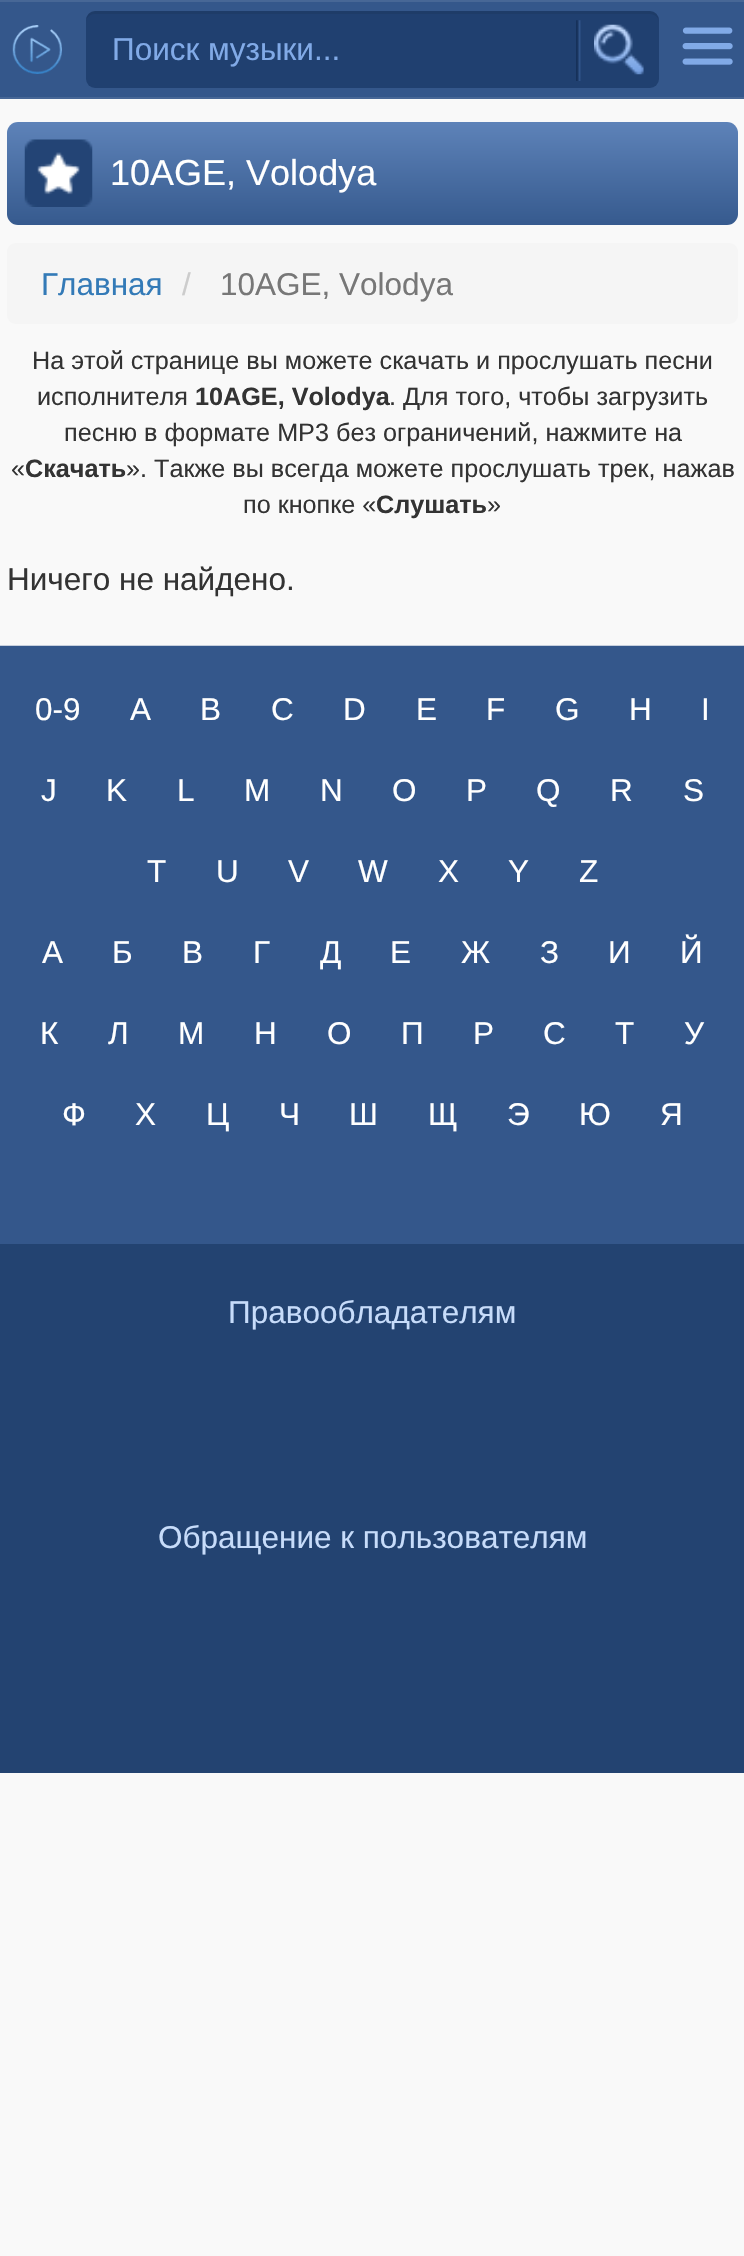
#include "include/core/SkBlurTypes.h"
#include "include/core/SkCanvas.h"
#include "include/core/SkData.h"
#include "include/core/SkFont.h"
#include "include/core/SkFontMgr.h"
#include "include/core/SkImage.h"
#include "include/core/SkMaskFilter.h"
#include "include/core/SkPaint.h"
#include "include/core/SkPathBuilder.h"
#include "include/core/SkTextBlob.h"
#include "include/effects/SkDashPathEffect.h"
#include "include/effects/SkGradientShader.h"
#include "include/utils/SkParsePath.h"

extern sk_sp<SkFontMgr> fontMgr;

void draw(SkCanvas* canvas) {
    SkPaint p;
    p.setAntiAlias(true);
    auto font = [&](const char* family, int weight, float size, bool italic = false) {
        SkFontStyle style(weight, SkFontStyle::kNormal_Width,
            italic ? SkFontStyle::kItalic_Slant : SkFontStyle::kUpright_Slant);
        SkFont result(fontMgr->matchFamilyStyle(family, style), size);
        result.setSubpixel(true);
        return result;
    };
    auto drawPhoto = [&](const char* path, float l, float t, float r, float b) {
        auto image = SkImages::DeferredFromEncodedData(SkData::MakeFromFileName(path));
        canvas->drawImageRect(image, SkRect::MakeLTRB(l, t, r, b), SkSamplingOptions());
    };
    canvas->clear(0xFFF9F9F9);
    {
        const struct { float l, t, r, b; SkColor color; } items[] = {
            {0, 2, 744, 97, 0xFF34578B},
            {0, 0, 744, 2, 0xFF476796},
            {0, 97, 744, 99, 0xFF476796},
        };
        for (auto [l, t, r, b, color] : items) {
            p.setColor(color);
            canvas->drawRect(SkRect::MakeLTRB(l, t, r, b), p);
        }
    }
    drawPhoto("media/1.png", 12, 25, 62, 74);
    p.setColor(0xFF204070);
    canvas->drawRoundRect(SkRect::MakeLTRB(86, 11, 659, 88), 9, 9, p);
    p.setColor(0x12000000);
    canvas->drawPath(SkPathBuilder().moveTo(94, 14).lineTo(650, 14).cubicTo(655, 14, 659, 18, 659, 22).cubicTo(659, 16, 656, 11, 650, 11).lineTo(95, 11).cubicTo(89, 11, 86, 16, 86, 22).cubicTo(86, 18, 90, 14, 94, 14).close().detach(), p);
    auto font1 = font("Liberation Sans", 400, 31.5f);
    p.setColor(0xFF81AAE7);
    canvas->drawString("Поиск музыки...", 112, 60, font1, p);
    drawPhoto("media/2.png", 576, 20, 581, 81);
    drawPhoto("media/3.png", 594, 24, 644, 75);
    drawPhoto("media/4.png", 682, 27, 733, 65);
    {
        const SkColor colors[] = {0xFF5E83B9, 0xFF365A8E};
        const float stops[] = {0, 1};
        const SkPoint ends[] = {{372, 121}, {372, 225}};
        p.setShader(SkGradientShader::MakeLinear(ends, colors, stops, 2, SkTileMode::kClamp));
        p.setAlpha(255);
    }
    canvas->drawRoundRect(SkRect::MakeLTRB(7, 122, 738, 225), 11, 11, p);
    drawPhoto("media/5.png", 24, 139, 93, 207);
    auto font2 = font("Liberation Sans", 400, 36);
    p.setShader(nullptr);
    p.setColor(0xFFFFFFFF);
    canvas->drawString("10AGE, Volodya", 110, 185, font2, p);
    p.setColor(0xFFF5F5F5);
    canvas->drawRoundRect(SkRect::MakeLTRB(7, 243, 738, 324), 9, 9, p);
    p.setColor(0xFF337AB7);
    canvas->drawString("Главная", 41, 295, font1, p);
    p.setColor(0xFFCCCCCC);
    canvas->drawString("/", 182, 295, font1, p);
    p.setColor(0xFF777777);
    canvas->drawString("10AGE, Volodya", 220, 295, font1, p);
    auto font3 = font("Liberation Sans", 400, 25.2f);
    p.setColor(0xFF333333);
    canvas->drawString("На этой странице вы можете скачать и прослушать песни", 32, 369, font3, p);
    canvas->drawString("исполнителя", 37, 405, font3, p);
    auto font4 = font("Liberation Sans", 700, 25.2f);
    canvas->drawString("10AGE, Volodya", 195, 405, font4, p);
    {
        const struct { const char* s; float x, y; } items[] = {
            {". Для того, чтобы загрузить", 389, 405},
            {"песню в формате MP3 без ограничений, нажмите на", 64, 441},
            {"«", 11, 477},
        };
        for (auto [s, x, y] : items) {
            canvas->drawString(s, x, y, font3, p);
        }
    }
    canvas->drawString("Скачать", 25, 477, font4, p);
    canvas->drawString("». Также вы всегда можете прослушать трек, нажав", 126, 477, font3, p);
    canvas->drawString("по кнопке «", 243, 513, font3, p);
    canvas->drawString("Слушать", 376, 513, font4, p);
    canvas->drawString("»", 487, 513, font3, p);
    canvas->drawString("Ничего не найдено.", 7, 590, font1, p);
    p.setColor(0xFF34578B);
    canvas->drawRect(SkRect::MakeLTRB(0, 646, 744, 1244), p);
    drawPhoto("media/6.png", 0, 645, 744, 646);
    p.setColor(0xFFFFFFFF);
    {
        const struct { const char* s; float x, y; } items[] = {
            {"0-9", 35, 720},
            {"A", 130, 720},
            {"B", 200, 720},
            {"C", 271, 720},
            {"D", 343, 720},
            {"E", 416, 720},
            {"F", 486, 720},
            {"G", 555, 720},
            {"H", 629, 720},
            {"I", 701, 720},
            {"J", 41, 801},
            {"K", 106, 801},
            {"L", 177, 801},
            {"M", 244, 801},
            {"N", 320, 801},
            {"O", 392, 801},
            {"P", 466, 801},
            {"Q", 536, 801},
            {"R", 610, 801},
            {"S", 683, 801},
            {"T", 147, 882},
            {"U", 216, 882},
            {"V", 288, 882},
            {"W", 358, 882},
            {"X", 438, 882},
            {"Y", 508, 882},
            {"Z", 579, 882},
            {"А", 42, 963},
            {"Б", 112, 963},
            {"В", 182, 963},
            {"Г", 253, 963},
            {"Д", 320, 963},
            {"Е", 390, 963},
            {"Ж", 461, 963},
            {"З", 540, 963},
            {"И", 608, 963},
            {"Й", 680, 963},
            {"К", 40, 1044},
            {"Л", 108, 1044},
            {"М", 178, 1044},
            {"Н", 254, 1044},
            {"О", 327, 1044},
            {"П", 401, 1044},
            {"Р", 473, 1044},
            {"С", 543, 1044},
            {"Т", 615, 1044},
            {"У", 684, 1044},
            {"Ф", 62, 1125},
            {"Х", 135, 1125},
            {"Ц", 206, 1125},
            {"Ч", 279, 1125},
            {"Ш", 349, 1125},
            {"Щ", 428, 1125},
            {"Э", 507, 1125},
            {"Ю", 579, 1125},
            {"Я", 660, 1125},
        };
        for (auto [s, x, y] : items) {
            canvas->drawString(s, x, y, font1, p);
        }
    }
    p.setColor(0xFF234371);
    canvas->drawRect(SkRect::MakeLTRB(0, 1244, 744, 1773), p);
    p.setColor(0xFFC7DCFA);
    canvas->drawString("Правообладателям", 228, 1323, font1, p);
    canvas->drawString("Обращение к пользователям", 158, 1548, font1, p);
}
